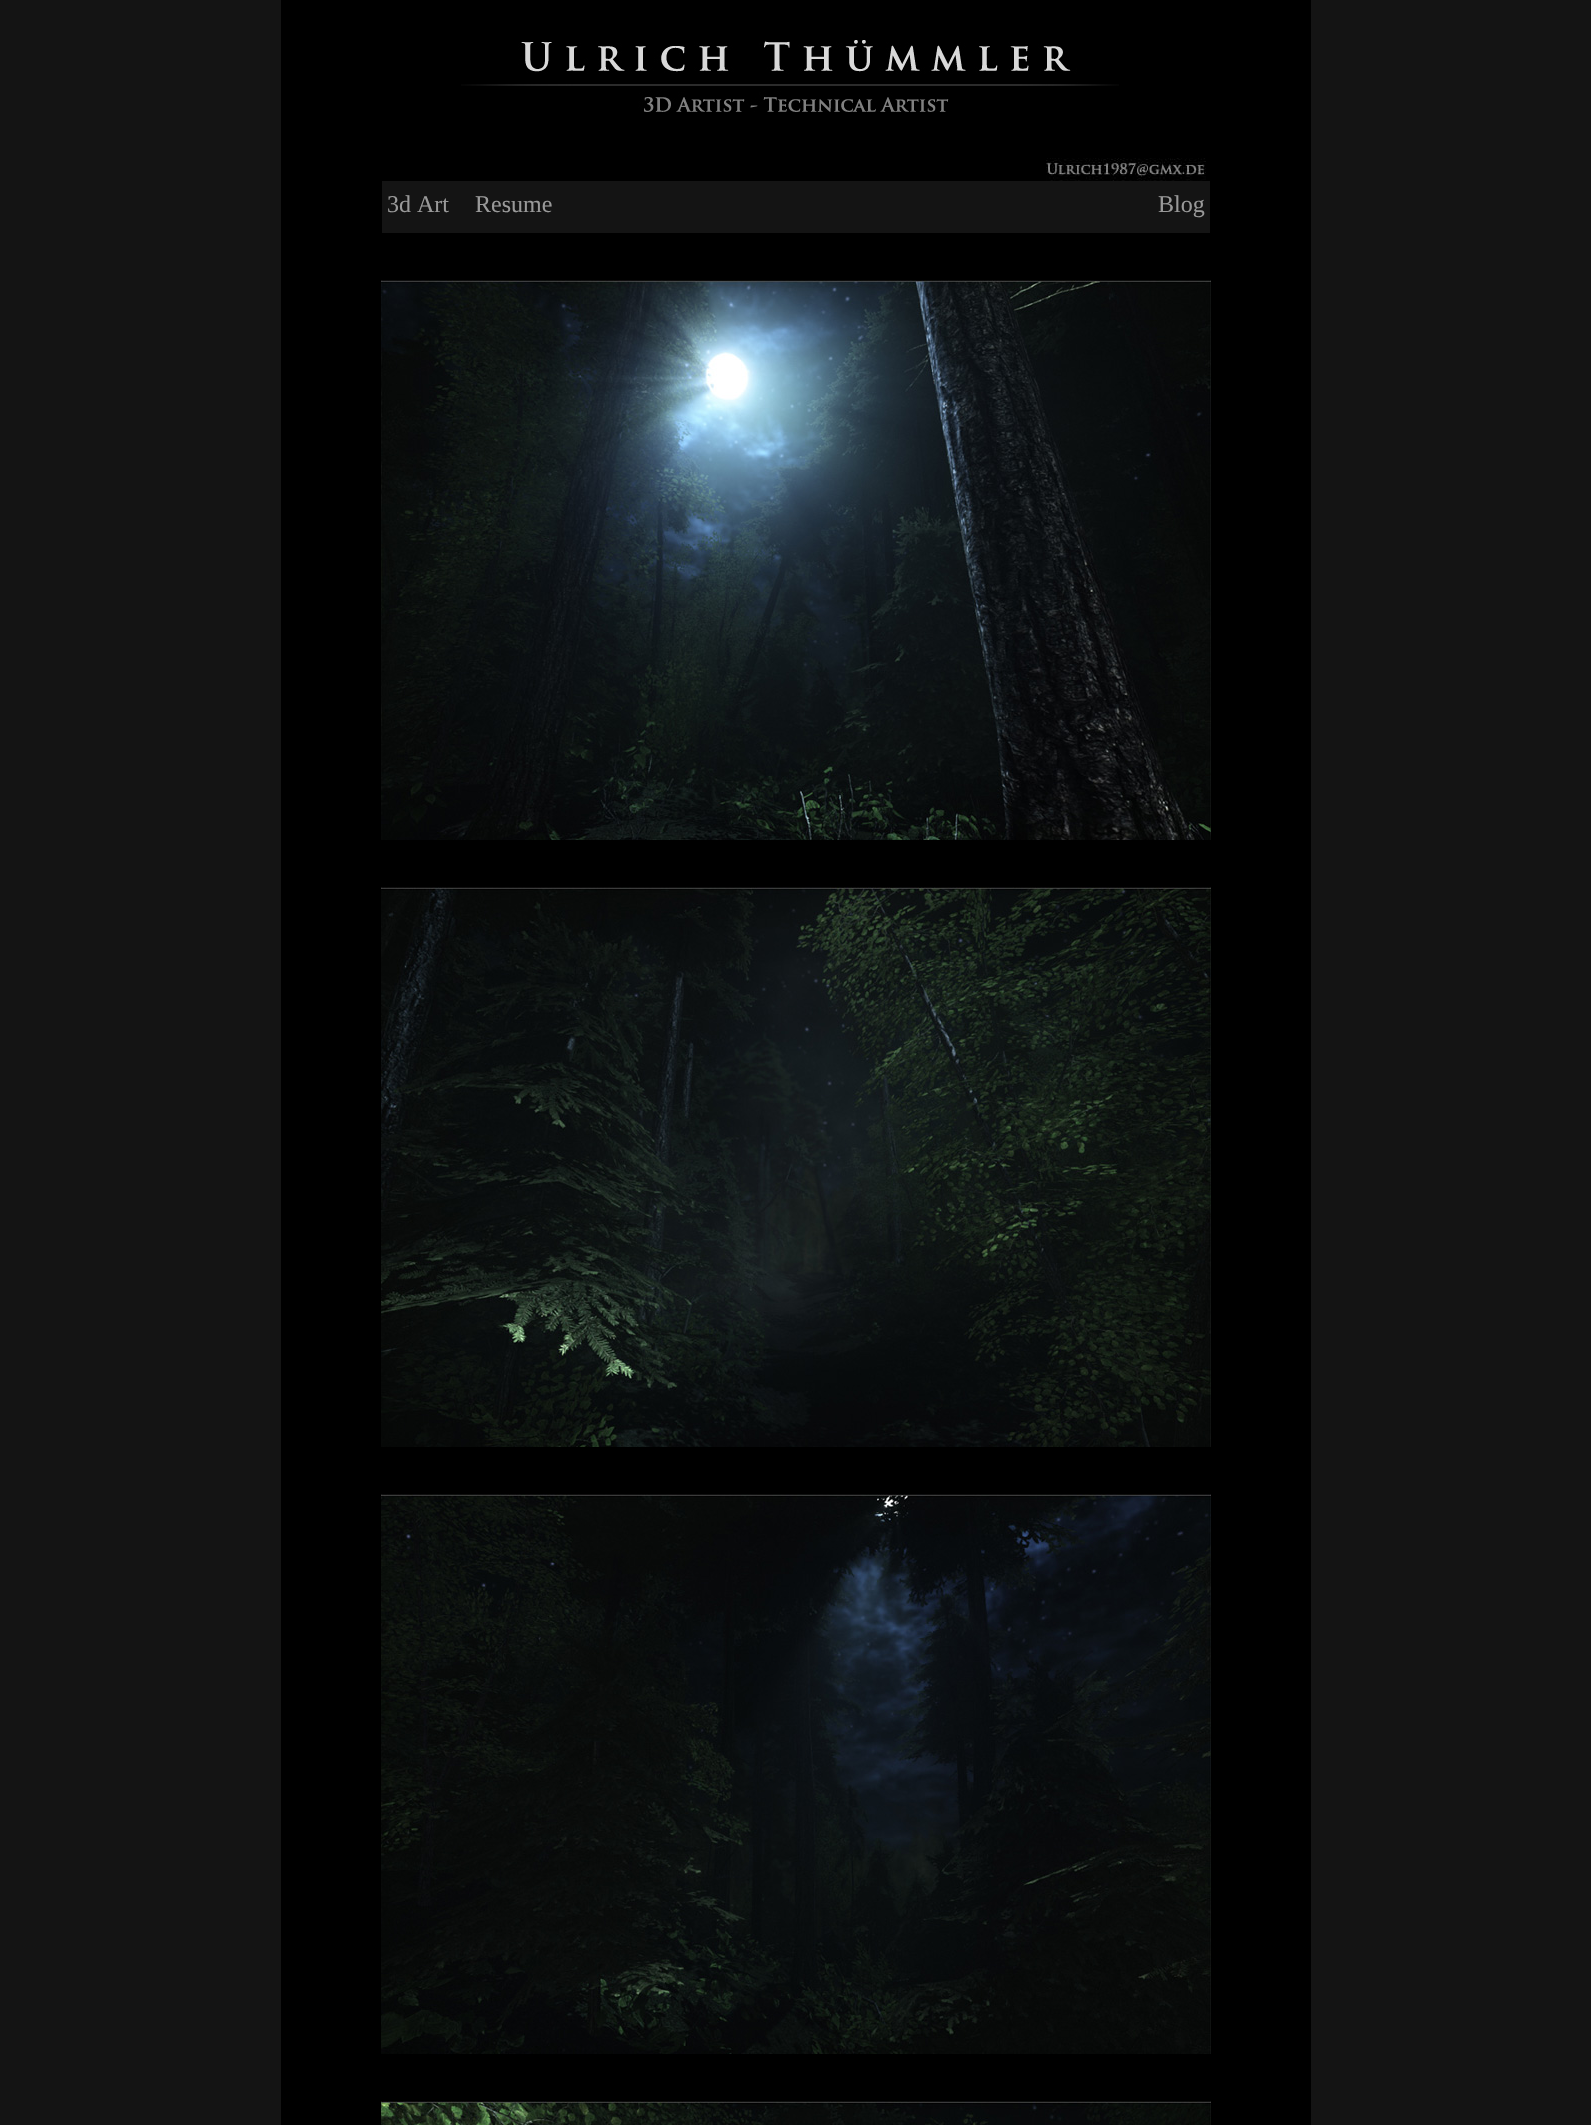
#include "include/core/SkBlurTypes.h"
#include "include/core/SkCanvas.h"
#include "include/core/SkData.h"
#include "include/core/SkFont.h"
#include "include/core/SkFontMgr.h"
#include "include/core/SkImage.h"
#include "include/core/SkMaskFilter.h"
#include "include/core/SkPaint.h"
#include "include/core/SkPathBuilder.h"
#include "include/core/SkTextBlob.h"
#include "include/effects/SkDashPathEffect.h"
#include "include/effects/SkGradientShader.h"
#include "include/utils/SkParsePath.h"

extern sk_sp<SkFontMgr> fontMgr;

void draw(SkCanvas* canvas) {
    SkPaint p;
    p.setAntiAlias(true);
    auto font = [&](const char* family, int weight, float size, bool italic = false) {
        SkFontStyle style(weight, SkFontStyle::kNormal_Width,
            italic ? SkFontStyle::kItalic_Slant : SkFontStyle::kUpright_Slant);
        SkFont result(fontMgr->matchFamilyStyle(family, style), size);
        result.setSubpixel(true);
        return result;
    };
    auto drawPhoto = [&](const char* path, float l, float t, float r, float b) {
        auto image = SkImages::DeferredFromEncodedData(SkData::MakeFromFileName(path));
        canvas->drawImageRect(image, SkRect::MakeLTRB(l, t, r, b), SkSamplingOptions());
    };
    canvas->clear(0xFF141414);
    p.setColor(0xFF000000);
    canvas->drawRect(SkRect::MakeLTRB(281, 0, 1311, 2125), p);
    drawPhoto("media/1.png", 461, 40, 1119, 112);
    drawPhoto("media/2.png", 1046, 158, 1206, 181);
    p.setColor(0xFF141414);
    canvas->drawRect(SkRect::MakeLTRB(382, 181, 1210, 233), p);
    auto font1 = font("Liberation Serif", 400, 24);
    p.setColor(0xFF999999);
    {
        const struct { const char* s; float x, y; } items[] = {
            {"3d Art", 387, 212},
            {"Resume", 475, 212},
            {"Blog", 1158, 212},
        };
        for (auto [s, x, y] : items) {
            canvas->drawString(s, x, y, font1, p);
        }
    }
    drawPhoto("media/3.png", 381, 280, 1211, 840);
    drawPhoto("media/4.png", 381, 887, 1211, 1447);
    drawPhoto("media/5.png", 381, 1494, 1211, 2054);
    drawPhoto("media/6.png", 381, 2101, 1211, 2125);
}
